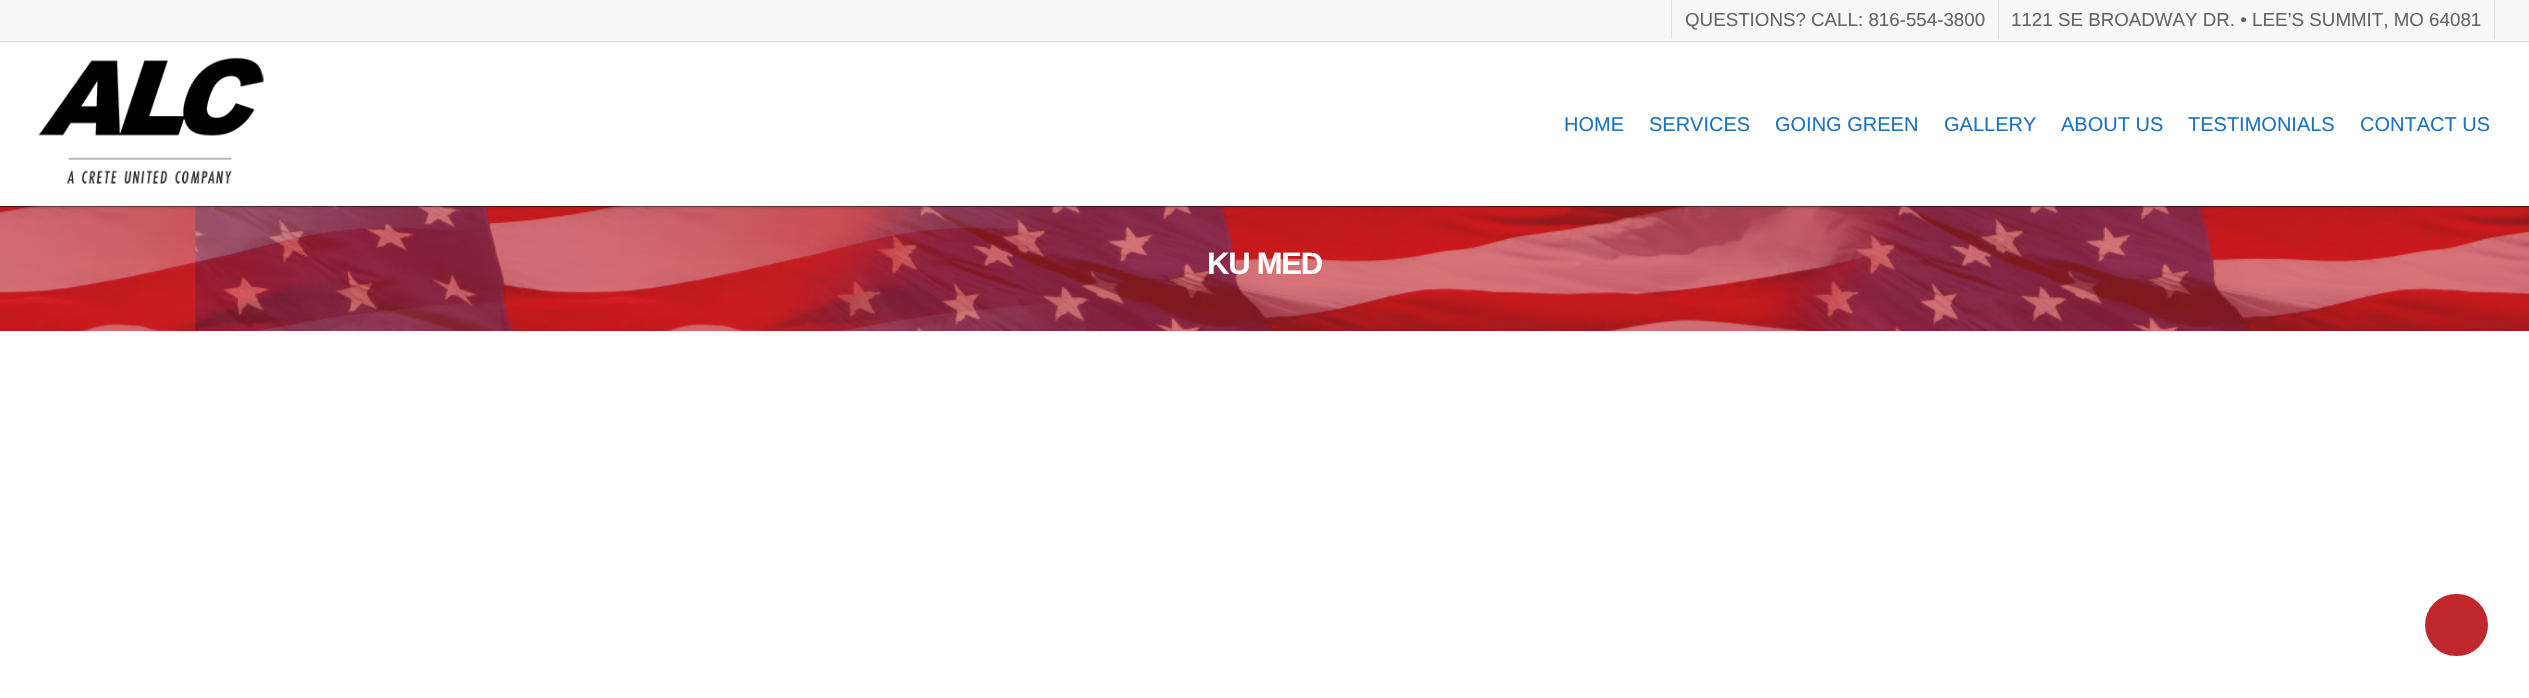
#include "include/core/SkBlurTypes.h"
#include "include/core/SkCanvas.h"
#include "include/core/SkData.h"
#include "include/core/SkFont.h"
#include "include/core/SkFontMgr.h"
#include "include/core/SkImage.h"
#include "include/core/SkMaskFilter.h"
#include "include/core/SkPaint.h"
#include "include/core/SkPathBuilder.h"
#include "include/core/SkTextBlob.h"
#include "include/effects/SkDashPathEffect.h"
#include "include/effects/SkGradientShader.h"
#include "include/utils/SkParsePath.h"

extern sk_sp<SkFontMgr> fontMgr;

void draw(SkCanvas* canvas) {
    SkPaint p;
    p.setAntiAlias(true);
    auto font = [&](const char* family, int weight, float size, bool italic = false) {
        SkFontStyle style(weight, SkFontStyle::kNormal_Width,
            italic ? SkFontStyle::kItalic_Slant : SkFontStyle::kUpright_Slant);
        SkFont result(fontMgr->matchFamilyStyle(family, style), size);
        result.setSubpixel(true);
        return result;
    };
    auto drawTracked = [&](const char* s, float x, float y, const SkFont& font, const SkPaint& ink, float letter, float word) {
        std::vector<SkGlyphID> glyphs(font.countText(s, strlen(s), SkTextEncoding::kUTF8));
        std::vector<float> xs(glyphs.size());
        font.textToGlyphs(s, strlen(s), SkTextEncoding::kUTF8, glyphs);
        font.getXPos(glyphs, xs, x);
        float extra = 0;
        for (size_t i = 0; i < glyphs.size(); i++) {
            xs[i] += extra;
            extra += letter + word * (glyphs[i] == font.unicharToGlyph(' '));
        }
        canvas->drawTextBlob(SkTextBlob::MakeFromPosHGlyphs(glyphs, xs, y, font), 0, 0, ink);
    };
    auto drawPhoto = [&](const char* path, float l, float t, float r, float b) {
        auto image = SkImages::DeferredFromEncodedData(SkData::MakeFromFileName(path));
        canvas->drawImageRect(image, SkRect::MakeLTRB(l, t, r, b), SkSamplingOptions());
    };
    canvas->clear(0xFFFFFFFF);
    p.setColor(0xFF000000);
    canvas->drawRect(SkRect::MakeLTRB(0, 206, 2529, 207), p);
    drawPhoto("media/2.png", 0, 206, 2529, 331);
    canvas->save();
    canvas->clipRect(SkRect::MakeLTRB(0, 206, 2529, 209));
    p.setColor(0x38000000);
    p.setMaskFilter(SkMaskFilter::MakeBlur(kNormal_SkBlurStyle, 2));
    canvas->drawRect(SkRect::MakeLTRB(0, 0, 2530, 206), p);
    p.setMaskFilter(nullptr);
    canvas->restore();
    {
        const struct { float l, t, r, b; SkColor color; } items[] = {
            {0, 0, 2529, 43, 0xFFF8F8F8},
            {0, 41, 2529, 42, 0xFFDFDFDF},
            {1671, 0, 1672, 39, 0xFFDFDFDF},
        };
        for (auto [l, t, r, b, color] : items) {
            p.setColor(color);
            canvas->drawRect(SkRect::MakeLTRB(l, t, r, b), p);
        }
    }
    auto font1 = font("Liberation Sans", 400, 18.75f);
    p.setColor(0xFF666666);
    canvas->drawString("QUESTIONS? CALL: 816-554-3800", 1685, 26, font1, p);
    p.setColor(0xFFDFDFDF);
    canvas->drawRect(SkRect::MakeLTRB(2494, 0, 2495, 39), p);
    canvas->drawRect(SkRect::MakeLTRB(1998, 0, 1999, 39), p);
    p.setColor(0xFF666666);
    canvas->drawString("1121 SE BROADWAY DR. • LEE’S SUMMIT, MO 64081", 2011, 26, font1, p);
    drawPhoto("media/1.png", 38, 57, 264, 184);
    auto font2 = font("Liberation Sans", 400, 20);
    p.setColor(0xFF1E73BE);
    {
        const struct { const char* s; float x, y; } items[] = {
            {"HOME", 1564, 131},
            {"SERVICES", 1649, 131},
            {"GOING GREEN", 1775, 131},
            {"GALLERY", 1944, 131},
            {"ABOUT US", 2061, 131},
            {"TESTIMONIALS", 2188, 131},
            {"CONTACT US", 2360, 131},
        };
        for (auto [s, x, y] : items) {
            canvas->drawString(s, x, y, font2, p);
        }
    }
    auto font3 = font("Liberation Sans", 700, 31);
    p.setColor(0xFFFFFFFF);
    drawTracked("KU MED", 1207, 274, font3, p, -1.25f, 0);
    p.setColor(0xFFC0282D);
    canvas->drawRoundRect(SkRect::MakeLTRB(2425, 594, 2488, 656), 31, 31, p);
}
